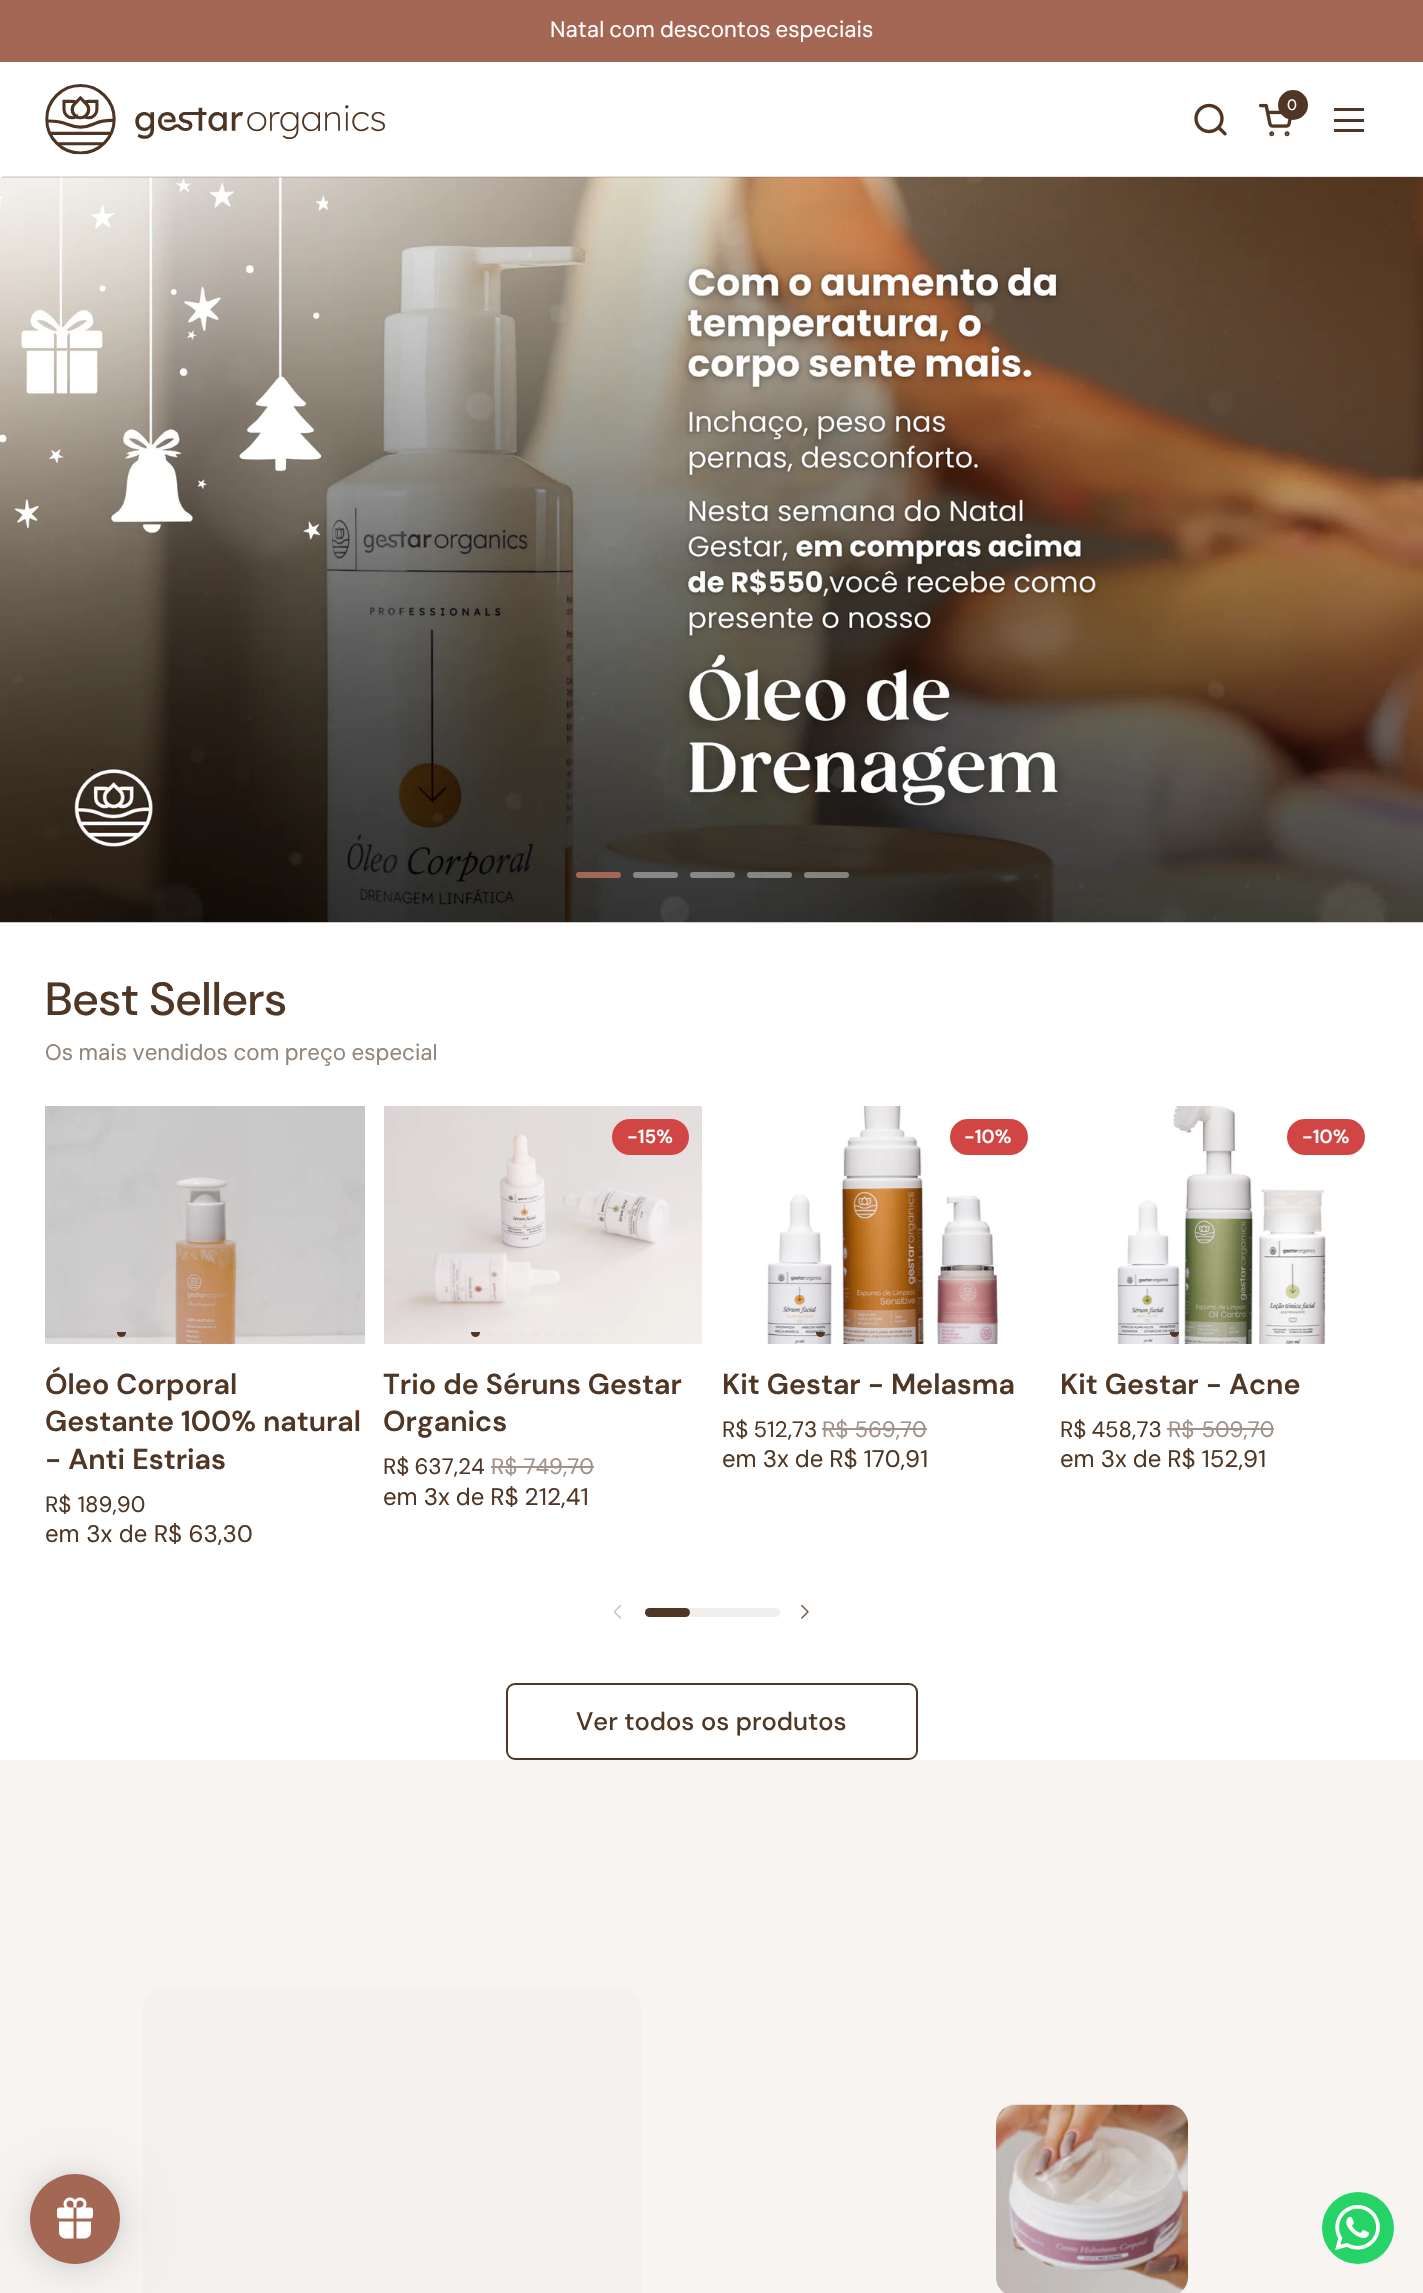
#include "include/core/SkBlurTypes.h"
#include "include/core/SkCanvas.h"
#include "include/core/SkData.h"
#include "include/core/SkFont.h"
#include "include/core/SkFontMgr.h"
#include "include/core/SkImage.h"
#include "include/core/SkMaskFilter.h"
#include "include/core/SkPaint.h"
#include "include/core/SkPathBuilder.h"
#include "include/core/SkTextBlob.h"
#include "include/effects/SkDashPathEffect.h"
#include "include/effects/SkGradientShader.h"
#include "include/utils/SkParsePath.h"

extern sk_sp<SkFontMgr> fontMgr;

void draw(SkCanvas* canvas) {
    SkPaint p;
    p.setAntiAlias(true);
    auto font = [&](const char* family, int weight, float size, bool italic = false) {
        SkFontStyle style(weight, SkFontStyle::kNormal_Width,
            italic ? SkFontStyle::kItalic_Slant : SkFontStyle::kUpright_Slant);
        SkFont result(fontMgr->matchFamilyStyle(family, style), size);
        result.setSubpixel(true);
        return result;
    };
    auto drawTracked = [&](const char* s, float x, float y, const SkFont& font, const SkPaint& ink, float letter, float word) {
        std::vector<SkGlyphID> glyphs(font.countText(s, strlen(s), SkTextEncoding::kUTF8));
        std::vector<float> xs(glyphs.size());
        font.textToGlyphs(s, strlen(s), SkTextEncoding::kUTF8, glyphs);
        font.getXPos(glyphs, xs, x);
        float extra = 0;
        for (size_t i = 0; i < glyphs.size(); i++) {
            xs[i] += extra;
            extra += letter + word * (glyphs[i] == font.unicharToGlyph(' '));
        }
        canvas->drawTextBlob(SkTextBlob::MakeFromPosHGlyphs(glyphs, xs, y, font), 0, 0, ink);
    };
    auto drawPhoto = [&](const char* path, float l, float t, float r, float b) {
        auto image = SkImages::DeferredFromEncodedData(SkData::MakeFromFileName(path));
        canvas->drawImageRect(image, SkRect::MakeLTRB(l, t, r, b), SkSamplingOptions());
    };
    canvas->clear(0xFFFFFFFF);
    p.setColor(0xFFA36754);
    canvas->drawRect(SkRect::MakeLTRB(0, 0, 1423, 62), p);
    auto font1 = font("DM Sans", 400, 22.3f);
    p.setColor(0xFFFFFFFF);
    drawTracked("Natal com descontos especiais", 550, 37, font1, p, 0, -1);
    drawPhoto("media/1.png", 45, 84, 385, 155);
    drawPhoto("media/2.png", 1194, 103, 1227, 136);
    p.setColor(0xFF503725);
    canvas->drawCircle(1293, 105, 15, p);
    auto font2 = font("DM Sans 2", 400, 15);
    p.setColor(0xFFFFFFFF);
    canvas->drawString("0", 1287, 110, font2, p);
    drawPhoto("media/3.png", 1258, 103, 1292, 137);
    {
        const struct { float l, t, r, b; SkColor color; } items[] = {
            {1334, 108, 1364, 111, 0xFF503725},
            {1334, 119, 1364, 122, 0xFF503725},
            {1334, 129, 1364, 132, 0xFF503725},
        };
        for (auto [l, t, r, b, color] : items) {
            p.setColor(color);
            canvas->drawRect(SkRect::MakeLTRB(l, t, r, b), p);
        }
    }
    drawPhoto("media/4.png", 0, 177, 1423, 923);
    p.setColor(0x26503725);
    canvas->drawRect(SkRect::MakeLTRB(2, 176, 1423, 178), p);
    p.setColor(0xFFA36754);
    canvas->drawRoundRect(SkRect::MakeLTRB(576, 872, 621, 878), 3, 3, p);
    p.setColor(0xFF888888);
    canvas->drawRoundRect(SkRect::MakeLTRB(633, 872, 678, 878), 3, 3, p);
    p.setColor(0x66FFFFFF);
    canvas->drawRoundRect(SkRect::MakeLTRB(690, 872, 735, 878), 3, 3, p);
    canvas->drawRoundRect(SkRect::MakeLTRB(747, 872, 792, 878), 3, 3, p);
    canvas->drawRoundRect(SkRect::MakeLTRB(804, 872, 849, 878), 3, 3, p);
    auto font3 = font("DM Sans", 500, 46.5f);
    p.setColor(0xFF503725);
    canvas->drawString("Best Sellers", 45, 1015, font3, p);
    p.setColor(0xFF938378);
    drawTracked("Os mais vendidos com preço especial", 45, 1060, font1, p, 0, -0.5f);
    drawPhoto("media/5.png", 45, 1106, 365, 1344);
    canvas->save();
    canvas->clipPath(SkPathBuilder().moveTo(57.5f, 1332).lineTo(351.5f, 1332).cubicTo(354, 1332, 356, 1334, 356, 1336.5f).cubicTo(356, 1339, 354, 1341, 351.5f, 1341).lineTo(57.5f, 1341).cubicTo(55, 1341, 53, 1339, 53, 1336.5f).cubicTo(53, 1334, 55, 1332, 57.5f, 1332).close().detach(), true);
    p.setColor(0xFF503725);
    canvas->drawCircle(121.5f, 1332.5f, 4.5f, p);
    canvas->restore();
    auto font4 = font("DM Sans", 600, 28.75f);
    {
        const struct { const char* s; float x, y; } items[] = {
            {"Óleo Corporal", 45, 1394},
            {"Gestante 100% natural", 45, 1431},
            {"- Anti Estrias", 45, 1469},
        };
        for (auto [s, x, y] : items) {
            canvas->drawString(s, x, y, font4, p);
        }
    }
    canvas->drawString("R$ 189,90", 45, 1512, font1, p);
    auto font5 = font("DM Sans", 400, 24);
    canvas->drawString("em 3x de R$ 63,30", 45, 1542, font5, p);
    drawPhoto("media/6.png", 384, 1106, 702, 1344);
    canvas->save();
    canvas->clipPath(SkPathBuilder().moveTo(396.5f, 1332).lineTo(690.5f, 1332).cubicTo(693, 1332, 695, 1334, 695, 1336.5f).cubicTo(695, 1339, 693, 1341, 690.5f, 1341).lineTo(396.5f, 1341).cubicTo(394, 1341, 392, 1339, 392, 1336.5f).cubicTo(392, 1334, 394, 1332, 396.5f, 1332).close().detach(), true);
    canvas->drawCircle(475.5f, 1332.5f, 4.5f, p);
    p.setColor(0xFFE9E2E2);
    canvas->drawCircle(490.5f, 1332.5f, 4.5f, p);
    p.setColor(0xFFEBE4E3);
    canvas->drawCircle(505.5f, 1332.5f, 4.5f, p);
    p.setColor(0xFFEBE6E3);
    canvas->drawCircle(520.5f, 1332.5f, 4.5f, p);
    p.setColor(0xFFECE5E4);
    canvas->drawCircle(535.5f, 1332.5f, 4.5f, p);
    p.setColor(0xFFECE7E4);
    canvas->drawCircle(550.5f, 1332.5f, 4.5f, p);
    p.setColor(0xFFEBE7E4);
    canvas->drawCircle(565.5f, 1332.5f, 4.5f, p);
    p.setColor(0xFFECE7E4);
    canvas->drawCircle(580.5f, 1332.5f, 4.5f, p);
    p.setColor(0xFFEDE9E5);
    canvas->drawCircle(595.5f, 1332.5f, 4.5f, p);
    canvas->drawPath(SkPathBuilder().moveTo(606, 1328).lineTo(610.5f, 1328).cubicTo(613, 1328, 615, 1330, 615, 1332.5f).cubicTo(615, 1335, 613, 1337, 610.5f, 1337).lineTo(606, 1337).close().detach(), p);
    canvas->restore();
    p.setColor(0xFFD14545);
    canvas->drawRoundRect(SkRect::MakeLTRB(612, 1119, 689, 1155), 18, 18, p);
    auto font6 = font("DM Sans 2", 600, 19);
    p.setColor(0xFFFFFFFF);
    canvas->drawString("-15%", 627, 1143, font6, p);
    p.setColor(0xFF503725);
    canvas->drawString("Trio de Séruns Gestar", 383, 1394, font4, p);
    canvas->drawString("Organics", 383, 1431, font4, p);
    drawTracked("R$ 637,24", 383, 1474, font1, p, 0, -1);
    p.setColor(0xFFA19389);
    canvas->drawString("R$ 749,70", 491, 1474, font1, p);
    canvas->drawRect(SkRect::MakeLTRB(491, 1466, 594, 1468), p);
    p.setColor(0xFF503725);
    drawTracked("em 3x de R$ 212,41", 383, 1505, font5, p, 0, -0.5f);
    drawPhoto("media/7.png", 767, 1106, 999, 1344);
    canvas->save();
    canvas->clipPath(SkPathBuilder().moveTo(733.5f, 1332).lineTo(1027.5f, 1332).cubicTo(1030, 1332, 1032, 1334, 1032, 1336.5f).cubicTo(1032, 1339, 1030, 1341, 1027.5f, 1341).lineTo(733.5f, 1341).cubicTo(731, 1341, 729, 1339, 729, 1336.5f).cubicTo(729, 1334, 731, 1332, 733.5f, 1332).close().detach(), true);
    canvas->drawCircle(820.5f, 1332.5f, 4.5f, p);
    canvas->restore();
    p.setColor(0xFFD14545);
    canvas->drawRoundRect(SkRect::MakeLTRB(950, 1119, 1028, 1155), 18, 18, p);
    p.setColor(0xFFFFFFFF);
    canvas->drawString("-10%", 964, 1143, font6, p);
    p.setColor(0xFF503725);
    canvas->drawString("Kit Gestar - Melasma", 722, 1394, font4, p);
    drawTracked("R$ 512,73", 722, 1437, font1, p, 0, -1);
    p.setColor(0xFFA19389);
    canvas->drawString("R$ 569,70", 822, 1437, font1, p);
    canvas->drawRect(SkRect::MakeLTRB(822, 1428, 927, 1430), p);
    p.setColor(0xFF503725);
    drawTracked("em 3x de R$ 170,91", 722, 1467, font5, p, 0, -0.5f);
    drawPhoto("media/8.png", 1117, 1106, 1326, 1344);
    canvas->save();
    canvas->clipPath(SkPathBuilder().moveTo(1072.5f, 1332).lineTo(1366.5f, 1332).cubicTo(1369, 1332, 1371, 1334, 1371, 1336.5f).cubicTo(1371, 1339, 1369, 1341, 1366.5f, 1341).lineTo(1072.5f, 1341).cubicTo(1070, 1341, 1068, 1339, 1068, 1336.5f).cubicTo(1068, 1334, 1070, 1332, 1072.5f, 1332).close().detach(), true);
    canvas->drawCircle(1174.5f, 1332.5f, 4.5f, p);
    canvas->restore();
    p.setColor(0xFFD14545);
    canvas->drawRoundRect(SkRect::MakeLTRB(1287, 1119, 1365, 1155), 18, 18, p);
    p.setColor(0xFFFFFFFF);
    canvas->drawString("-10%", 1302, 1143, font6, p);
    p.setColor(0xFF503725);
    canvas->drawString("Kit Gestar - Acne", 1060, 1394, font4, p);
    drawTracked("R$ 458,73", 1060, 1437, font1, p, 0, -1);
    p.setColor(0xFFA19389);
    drawTracked("R$ 509,70", 1168, 1437, font1, p, 0, 1);
    canvas->drawRect(SkRect::MakeLTRB(1167, 1428, 1274, 1430), p);
    p.setColor(0xFF503725);
    drawTracked("em 3x de R$ 152,91", 1060, 1467, font5, p, 0, -0.5f);
    drawPhoto("media/9.png", 614, 1604, 622, 1619);
    canvas->drawRoundRect(SkRect::MakeLTRB(645, 1608, 690, 1617), 4.5f, 4.5f, p);
    p.setColor(0xFFF1EFEE);
    canvas->drawRect(SkRect::MakeLTRB(690, 1608, 735, 1617), p);
    canvas->drawPath(SkPathBuilder().moveTo(735, 1608).lineTo(775.5f, 1608).cubicTo(778, 1608, 780, 1610, 780, 1612.5f).cubicTo(780, 1615, 778, 1617, 775.5f, 1617).lineTo(735, 1617).close().detach(), p);
    drawPhoto("media/10.png", 801, 1604, 809, 1619);
    p.setStyle(SkPaint::kStroke_Style);
    p.setStrokeWidth(2);
    p.setColor(0xFF503725);
    canvas->drawRoundRect(SkRect::MakeLTRB(507, 1684, 917, 1759), 8, 8, p);
    auto font7 = font("DM Sans 2", 500, 25.5f);
    p.setStyle(SkPaint::kFill_Style);
    canvas->drawString("Ver todos os produtos", 576, 1730, font7, p);
    p.setColor(0xFFF7F4F2);
    canvas->drawRect(SkRect::MakeLTRB(0, 1760, 1423, 2293), p);
    p.setColor(0xFFF4F0EE);
    canvas->drawRoundRect(SkRect::MakeLTRB(143, 1989, 641, 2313), 20, 20, p);
    drawPhoto("media/11.png", 996, 2104, 1188, 2293);
    p.setColor(0x26000000);
    p.setMaskFilter(SkMaskFilter::MakeBlur(kNormal_SkBlurStyle, 22.5f));
    canvas->drawRoundRect(SkRect::MakeLTRB(30, 2177, 120, 2267), 45, 45, p);
    p.setMaskFilter(nullptr);
    p.setColor(0x0D000000);
    p.setMaskFilter(SkMaskFilter::MakeBlur(kNormal_SkBlurStyle, 4.5f));
    canvas->drawRoundRect(SkRect::MakeLTRB(30, 2175, 120, 2265), 45, 45, p);
    p.setMaskFilter(nullptr);
    p.setColor(0xFFA36754);
    canvas->drawCircle(75, 2219, 45, p);
    drawPhoto("media/12.png", 57, 2197, 93, 2239);
    p.setColor(0xFF25D366);
    canvas->drawCircle(1358, 2228, 36, p);
    drawPhoto("media/13.png", 1335, 2205, 1380, 2250);
}
